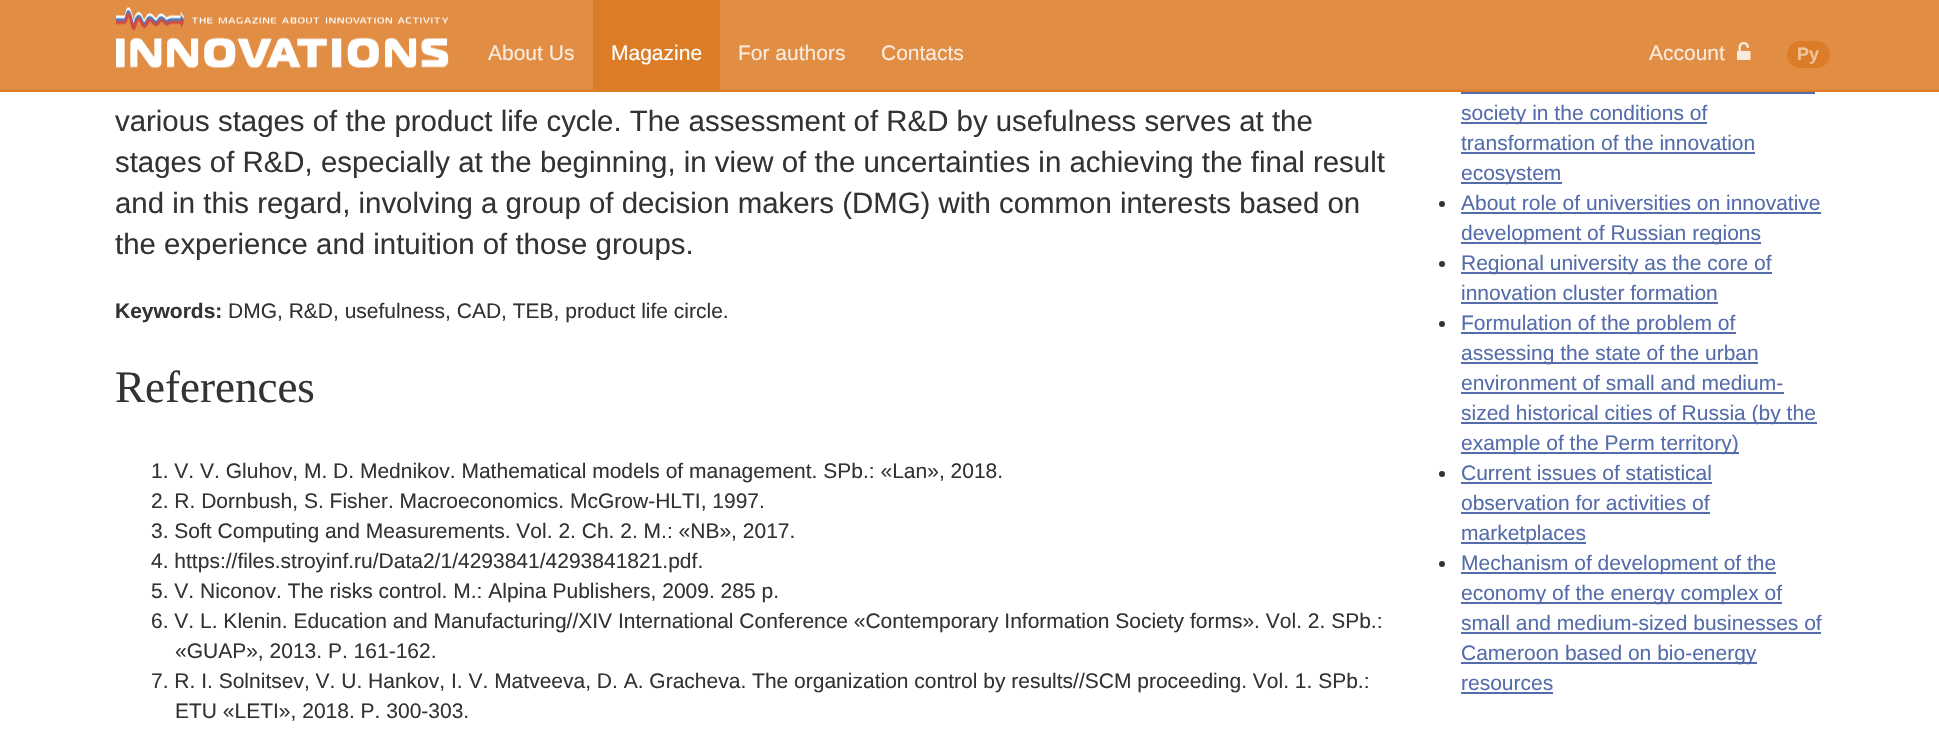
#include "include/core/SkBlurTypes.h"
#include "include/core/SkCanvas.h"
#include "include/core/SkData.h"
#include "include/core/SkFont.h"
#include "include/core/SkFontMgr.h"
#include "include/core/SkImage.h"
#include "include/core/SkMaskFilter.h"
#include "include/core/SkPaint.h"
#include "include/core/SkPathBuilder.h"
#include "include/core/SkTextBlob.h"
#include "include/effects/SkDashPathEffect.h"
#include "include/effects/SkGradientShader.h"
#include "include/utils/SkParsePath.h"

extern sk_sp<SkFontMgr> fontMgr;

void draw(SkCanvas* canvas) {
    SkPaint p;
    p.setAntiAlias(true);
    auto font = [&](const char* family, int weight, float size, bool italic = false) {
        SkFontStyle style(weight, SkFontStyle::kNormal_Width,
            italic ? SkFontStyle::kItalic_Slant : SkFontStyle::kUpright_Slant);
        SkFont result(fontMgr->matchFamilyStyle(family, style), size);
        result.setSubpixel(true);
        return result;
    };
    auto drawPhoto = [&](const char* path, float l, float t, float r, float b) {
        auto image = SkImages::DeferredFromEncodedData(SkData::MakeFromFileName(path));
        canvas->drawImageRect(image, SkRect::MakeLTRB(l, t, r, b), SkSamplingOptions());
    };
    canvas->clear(0xFFFFFFFF);
    p.setColor(0xFFE18D44);
    canvas->drawRect(SkRect::MakeLTRB(0, 0, 1939, 90), p);
    p.setColor(0xFFDC7C27);
    canvas->drawRect(SkRect::MakeLTRB(0, 90, 1939, 92), p);
    drawPhoto("media/1.png", 116, 7, 449, 68);
    auto font1 = font("Liberation Sans", 400, 21);
    p.setColor(0xFFFAEBDE);
    canvas->drawString("About Us", 488, 60, font1, p);
    p.setColor(0xFFDC7C27);
    canvas->drawRect(SkRect::MakeLTRB(593, 0, 720, 90), p);
    p.setColor(0xFFFFFFFF);
    canvas->drawString("Magazine", 611, 60, font1, p);
    p.setColor(0xFFFAEBDE);
    {
        const struct { const char* s; float x, y; } items[] = {
            {"For authors", 738, 60},
            {"Contacts", 881, 60},
            {"Account", 1649, 60},
        };
        for (auto [s, x, y] : items) {
            canvas->drawString(s, x, y, font1, p);
        }
    }
    drawPhoto("media/2.png", 1737, 42, 1751, 60);
    p.setColor(0xFFDC7C27);
    canvas->drawRoundRect(SkRect::MakeLTRB(1787, 41, 1830, 68), 13.5f, 13.5f, p);
    auto font2 = font("Liberation Sans", 700, 18);
    p.setColor(0xFFEFC39C);
    canvas->drawString("Ру", 1797, 60, font2, p);
    auto font3 = font("Liberation Sans", 400, 29.4f);
    p.setColor(0xFF333333);
    {
        const struct { const char* s; float x, y; } items[] = {
            {"various stages of the product life cycle. The assessment of R&D by usefulness serves at the", 115, 131},
            {"stages of R&D, especially at the beginning, in view of the uncertainties in achieving the final result", 115, 172},
            {"and in this regard, involving a group of decision makers (DMG) with common interests based on", 115, 213},
            {"the experience and intuition of those groups.", 115, 254},
        };
        for (auto [s, x, y] : items) {
            canvas->drawString(s, x, y, font3, p);
        }
    }
    auto font4 = font("Liberation Sans", 700, 21);
    canvas->drawString("Keywords:", 115, 318, font4, p);
    canvas->drawString("DMG, R&D, usefulness, CAD, TEB, product life circle.", 228, 318, font1, p);
    auto font5 = font("Liberation Serif", 400, 45);
    canvas->drawString("References", 115, 402, font5, p);
    {
        const struct { const char* s; float x, y; } items[] = {
            {"1. V. V. Gluhov, M. D. Mednikov. Mathematical models of management. SPb.: «Lan», 2018.", 151, 478},
            {"2. R. Dornbush, S. Fisher. Macroeconomics. McGrow-HLTI, 1997.", 151, 508},
            {"3. Soft Computing and Measurements. Vol. 2. Ch. 2. M.: «NB», 2017.", 151, 538},
            {"4. https://files.stroyinf.ru/Data2/1/4293841/4293841821.pdf.", 151, 568},
            {"5. V. Niconov. The risks control. M.: Alpina Publishers, 2009. 285 p.", 151, 598},
            {"6. V. L. Klenin. Education and Manufacturing//XIV International Conference «Contemporary Information Society forms». Vol. 2. SPb.:", 151, 628},
            {"«GUAP», 2013. P. 161-162.", 175, 658},
            {"7. R. I. Solnitsev, V. U. Hankov, I. V. Matveeva, D. A. Gracheva. The organization control by results//SCM proceeding. Vol. 1. SPb.:", 151, 688},
            {"ETU «LETI», 2018. P. 300-303.", 175, 718},
        };
        for (auto [s, x, y] : items) {
            canvas->drawString(s, x, y, font1, p);
        }
    }
    p.setColor(0xFF546DAA);
    canvas->drawRect(SkRect::MakeLTRB(1461, 122, 1707, 124), p);
    canvas->drawString("society in the conditions of", 1461, 120, font1, p);
    canvas->drawRect(SkRect::MakeLTRB(1461, 92, 1815, 94), p);
    canvas->drawString("transformation of the innovation", 1461, 150, font1, p);
    canvas->drawRect(SkRect::MakeLTRB(1461, 152, 1755, 154), p);
    canvas->drawRect(SkRect::MakeLTRB(1461, 182, 1562, 184), p);
    canvas->drawString("ecosystem", 1461, 180, font1, p);
    p.setColor(0xFF333333);
    canvas->drawCircle(1442, 204, 3, p);
    p.setColor(0xFF546DAA);
    canvas->drawString("About role of universities on innovative", 1461, 210, font1, p);
    canvas->drawRect(SkRect::MakeLTRB(1461, 212, 1821, 214), p);
    canvas->drawRect(SkRect::MakeLTRB(1461, 242, 1761, 244), p);
    canvas->drawString("development of Russian regions", 1461, 240, font1, p);
    p.setColor(0xFF333333);
    canvas->drawCircle(1442, 264, 3, p);
    p.setColor(0xFF546DAA);
    canvas->drawRect(SkRect::MakeLTRB(1461, 272, 1772, 274), p);
    canvas->drawString("Regional university as the core of", 1461, 270, font1, p);
    canvas->drawString("innovation cluster formation", 1461, 300, font1, p);
    canvas->drawRect(SkRect::MakeLTRB(1461, 302, 1718, 304), p);
    p.setColor(0xFF333333);
    canvas->drawCircle(1442, 324, 3, p);
    p.setColor(0xFF546DAA);
    canvas->drawRect(SkRect::MakeLTRB(1461, 332, 1736, 334), p);
    canvas->drawString("Formulation of the problem of", 1461, 330, font1, p);
    canvas->drawRect(SkRect::MakeLTRB(1461, 362, 1758, 364), p);
    canvas->drawString("assessing the state of the urban", 1461, 360, font1, p);
    canvas->drawString("environment of small and medium-", 1461, 390, font1, p);
    canvas->drawRect(SkRect::MakeLTRB(1461, 392, 1784, 394), p);
    canvas->drawRect(SkRect::MakeLTRB(1461, 422, 1817, 424), p);
    canvas->drawString("sized historical cities of Russia (by the", 1461, 420, font1, p);
    canvas->drawRect(SkRect::MakeLTRB(1461, 452, 1739, 454), p);
    canvas->drawString("example of the Perm territory)", 1461, 450, font1, p);
    p.setColor(0xFF333333);
    canvas->drawCircle(1442, 474, 3, p);
    p.setColor(0xFF546DAA);
    canvas->drawString("Current issues of statistical", 1461, 480, font1, p);
    canvas->drawRect(SkRect::MakeLTRB(1461, 482, 1712, 484), p);
    canvas->drawString("observation for activities of", 1461, 510, font1, p);
    canvas->drawRect(SkRect::MakeLTRB(1461, 512, 1710, 514), p);
    canvas->drawRect(SkRect::MakeLTRB(1461, 542, 1586, 544), p);
    canvas->drawString("marketplaces", 1461, 540, font1, p);
    p.setColor(0xFF333333);
    canvas->drawCircle(1442, 564, 3, p);
    p.setColor(0xFF546DAA);
    canvas->drawRect(SkRect::MakeLTRB(1461, 572, 1776, 574), p);
    canvas->drawString("Mechanism of development of the", 1461, 570, font1, p);
    canvas->drawRect(SkRect::MakeLTRB(1461, 602, 1782, 604), p);
    canvas->drawString("economy of the energy complex of", 1461, 600, font1, p);
    canvas->drawString("small and medium-sized businesses of", 1461, 630, font1, p);
    canvas->drawRect(SkRect::MakeLTRB(1461, 632, 1821, 634), p);
    canvas->drawRect(SkRect::MakeLTRB(1461, 662, 1757, 664), p);
    canvas->drawString("Cameroon based on bio-energy", 1461, 660, font1, p);
    canvas->drawString("resources", 1461, 690, font1, p);
    canvas->drawRect(SkRect::MakeLTRB(1461, 692, 1553, 694), p);
}
